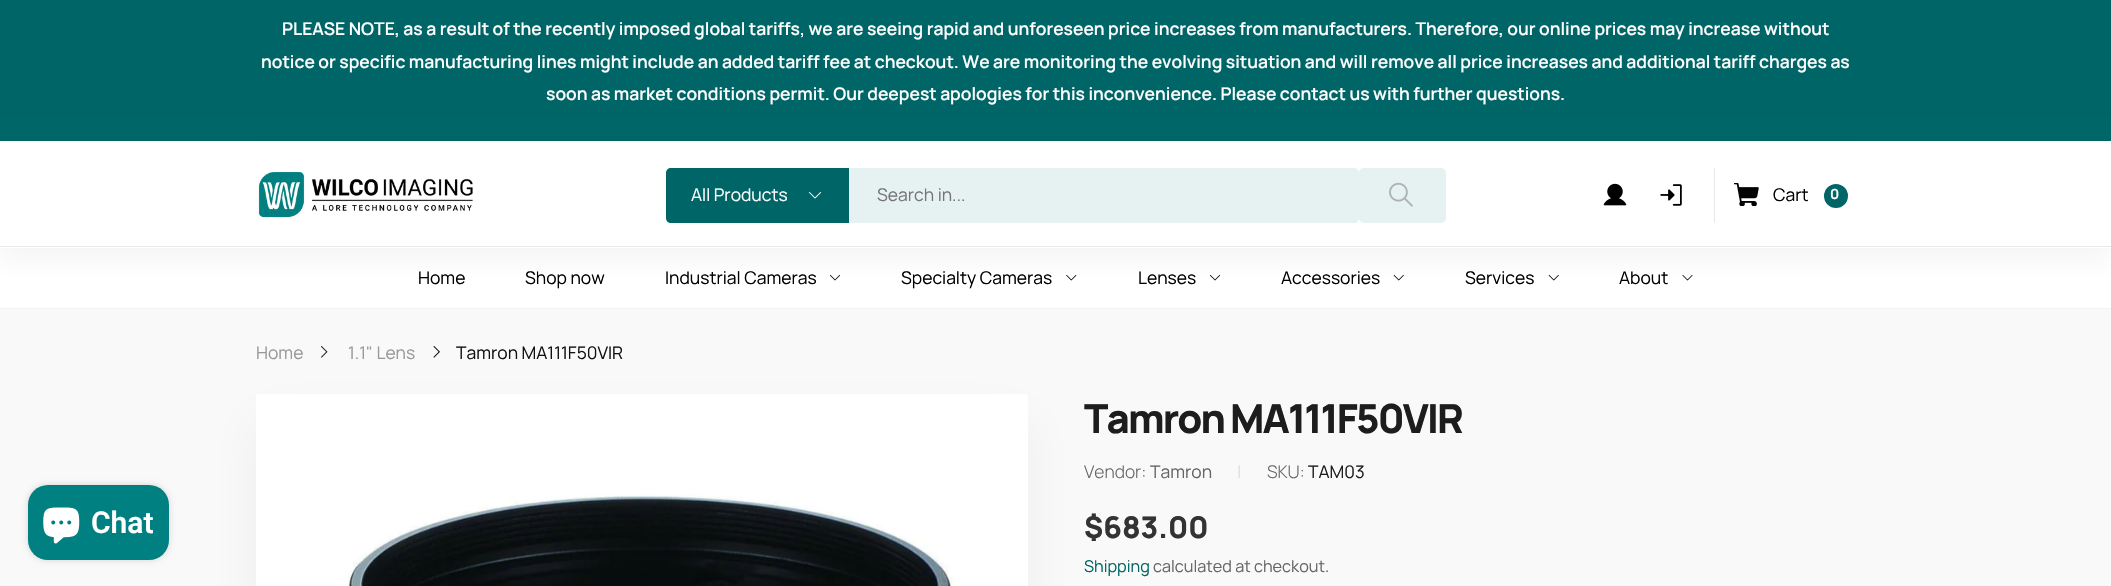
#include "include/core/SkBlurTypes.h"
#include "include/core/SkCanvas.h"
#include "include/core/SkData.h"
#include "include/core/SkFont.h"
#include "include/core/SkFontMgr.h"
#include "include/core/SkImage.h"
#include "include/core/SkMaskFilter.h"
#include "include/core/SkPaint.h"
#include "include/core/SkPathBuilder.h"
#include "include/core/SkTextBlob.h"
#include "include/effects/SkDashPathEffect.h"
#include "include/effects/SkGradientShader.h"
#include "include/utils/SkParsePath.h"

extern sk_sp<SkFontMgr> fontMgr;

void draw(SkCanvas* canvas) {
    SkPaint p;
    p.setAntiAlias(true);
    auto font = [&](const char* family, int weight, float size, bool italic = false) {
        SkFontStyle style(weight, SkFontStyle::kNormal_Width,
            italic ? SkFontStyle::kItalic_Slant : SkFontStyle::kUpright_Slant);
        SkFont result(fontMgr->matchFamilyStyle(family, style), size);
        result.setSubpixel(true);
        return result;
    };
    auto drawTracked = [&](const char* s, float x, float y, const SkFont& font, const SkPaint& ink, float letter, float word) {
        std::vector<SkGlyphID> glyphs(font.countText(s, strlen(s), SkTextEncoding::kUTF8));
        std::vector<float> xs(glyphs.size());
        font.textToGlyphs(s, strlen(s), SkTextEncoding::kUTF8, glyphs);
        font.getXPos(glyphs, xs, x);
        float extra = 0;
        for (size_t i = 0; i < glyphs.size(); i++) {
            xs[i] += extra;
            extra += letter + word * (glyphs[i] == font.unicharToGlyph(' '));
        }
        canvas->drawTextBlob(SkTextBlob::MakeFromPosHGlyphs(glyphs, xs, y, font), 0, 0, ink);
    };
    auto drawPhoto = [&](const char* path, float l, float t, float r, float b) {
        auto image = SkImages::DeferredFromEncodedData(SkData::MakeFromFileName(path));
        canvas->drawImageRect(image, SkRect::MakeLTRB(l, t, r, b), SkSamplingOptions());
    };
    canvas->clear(0xFFF9F9F9);
    p.setColor(0x26000000);
    p.setMaskFilter(SkMaskFilter::MakeBlur(kNormal_SkBlurStyle, 3));
    canvas->drawRoundRect(SkRect::MakeLTRB(28, 485, 169, 560), 20, 20, p);
    p.setMaskFilter(nullptr);
    p.setColor(0xFF008080);
    canvas->drawRoundRect(SkRect::MakeLTRB(28, 485, 169, 560), 20, 20, p);
    drawPhoto("media/1.png", 43, 507, 80, 544);
    auto font1 = font("Roboto", 600, 30);
    p.setColor(0xFFFFFFFF);
    canvas->drawString("Chat", 91, 533, font1, p);
    canvas->drawRect(SkRect::MakeLTRB(0, 248, 2111, 308), p);
    p.setColor(0xFF006566);
    canvas->drawRect(SkRect::MakeLTRB(0, 0, 2111, 141), p);
    auto font2 = font("Manrope", 600, 17.5f);
    p.setColor(0xFFFFFFFF);
    {
        const struct { const char* s; float x, y; } items[] = {
            {"PLEASE NOTE, as a result of the recently imposed global tariffs, we are seeing rapid and unforeseen price increases from manufacturers. Therefore, our online prices may increase without", 282, 35},
            {"notice or specific manufacturing lines might include an added tariff fee at checkout. We are monitoring the evolving situation and will remove all price increases and additional tariff charges as", 261, 68},
            {"soon as market conditions permit. Our deepest apologies for this inconvenience. Please contact us with further questions.", 546, 100},
        };
        for (auto [s, x, y] : items) {
            canvas->drawString(s, x, y, font2, p);
        }
    }
    p.setColor(0x0D242424);
    p.setMaskFilter(SkMaskFilter::MakeBlur(kNormal_SkBlurStyle, 12.5f));
    canvas->drawRect(SkRect::MakeLTRB(0, 154, 2111, 260), p);
    p.setMaskFilter(nullptr);
    {
        const struct { float l, t, r, b; SkColor color; } items[] = {
            {0, 141, 2111, 248, 0xFFFFFFFF},
            {0, 246, 2111, 247, 0xFFE8E8E8},
            {256, 141, 1856, 142, 0xFFFCFCFD},
        };
        for (auto [l, t, r, b, color] : items) {
            p.setColor(color);
            canvas->drawRect(SkRect::MakeLTRB(l, t, r, b), p);
        }
    }
    drawPhoto("media/2.png", 258, 172, 473, 218);
    p.setColor(0xFF006566);
    canvas->drawPath(SkPathBuilder().moveTo(671, 168).lineTo(849, 168).lineTo(849, 223).lineTo(671, 223).cubicTo(668, 223, 666, 221, 666, 218).lineTo(666, 173).cubicTo(666, 170, 668, 168, 671, 168).close().detach(), p);
    auto font3 = font("Manrope", 400, 17.5f);
    p.setColor(0xFFFFFFFF);
    canvas->drawString("All Products", 691, 201, font3, p);
    drawPhoto("media/3.png", 808, 191, 822, 199);
    p.setColor(0xFFE6F2F2);
    canvas->drawPath(SkPathBuilder().moveTo(849, 168).lineTo(1354, 168).cubicTo(1357, 168, 1359, 170, 1359, 173).lineTo(1359, 218).cubicTo(1359, 221, 1357, 223, 1354, 223).lineTo(849, 223).close().detach(), p);
    p.setColor(0xFF757575);
    canvas->drawString("Search in...", 877, 201, font3, p);
    p.setColor(0xFFE6F2F2);
    canvas->drawRoundRect(SkRect::MakeLTRB(1359, 168, 1446, 223), 5, 5, p);
    drawPhoto("media/4.png", 1389, 182, 1413, 207);
    drawPhoto("media/5.png", 1603, 183, 1627, 206);
    drawPhoto("media/6.png", 1660, 184, 1682, 206);
    p.setColor(0xFFE8E8E8);
    canvas->drawRect(SkRect::MakeLTRB(1714, 168, 1715, 223), p);
    drawPhoto("media/7.png", 1734, 183, 1759, 206);
    p.setColor(0xFF000000);
    canvas->drawString("Cart", 1773, 201, font3, p);
    p.setColor(0xFF006566);
    canvas->drawCircle(1836, 196, 12, p);
    auto font4 = font("Manrope", 700, 14);
    p.setColor(0xFFFFFFFF);
    canvas->drawString("0", 1830, 199, font4, p);
    p.setColor(0xFF000000);
    {
        const struct { const char* s; float x, y; } items[] = {
            {"Home", 418, 284},
            {"Shop now", 525, 284},
            {"Industrial Cameras", 665, 284},
        };
        for (auto [s, x, y] : items) {
            canvas->drawString(s, x, y, font3, p);
        }
    }
    drawPhoto("media/8.png", 829, 274, 841, 281);
    canvas->drawString("Specialty Cameras", 901, 284, font3, p);
    drawPhoto("media/9.png", 1066, 274, 1077, 281);
    canvas->drawString("Lenses", 1138, 284, font3, p);
    drawPhoto("media/8.png", 1209, 274, 1221, 281);
    canvas->drawString("Accessories", 1281, 284, font3, p);
    drawPhoto("media/10.png", 1393, 274, 1404, 281);
    canvas->drawString("Services", 1465, 284, font3, p);
    drawPhoto("media/10.png", 1548, 274, 1559, 281);
    canvas->drawString("About", 1619, 284, font3, p);
    drawPhoto("media/11.png", 1682, 274, 1693, 281);
    p.setColor(0xFFF1F2F3);
    canvas->drawRect(SkRect::MakeLTRB(0, 308, 2111, 309), p);
    p.setColor(0xFF999999);
    canvas->drawString("Home", 256, 359, font3, p);
    drawPhoto("media/12.png", 320, 346, 328, 358);
    canvas->drawString("1.1\" Lens", 348, 359, font3, p);
    drawPhoto("media/13.png", 433, 346, 440, 358);
    p.setColor(0xFF111111);
    canvas->drawString("Tamron MA111F50VIR", 456, 359, font3, p);
    p.setColor(0x0D242424);
    p.setMaskFilter(SkMaskFilter::MakeBlur(kNormal_SkBlurStyle, 25));
    canvas->drawRect(SkRect::MakeLTRB(256, 419, 1028, 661), p);
    p.setMaskFilter(nullptr);
    p.setColor(0xFFFFFFFF);
    canvas->drawRoundRect(SkRect::MakeLTRB(256, 394, 1028, 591), 5, 5, p);
    canvas->save();
    canvas->clipRect(SkRect::MakeLTRB(256, 394, 1028, 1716));
    p.setStyle(SkPaint::kStroke_Style);
    p.setStrokeWidth(18.8f);
    canvas->drawPath(SkPathBuilder().moveTo(265.5f, 403).lineTo(1018, 403).lineTo(1018, 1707).lineTo(265.5f, 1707).close().detach(), p);
    canvas->restore();
    drawPhoto("media/14.png", 348, 494, 956, 586);
    auto font5 = font("Manrope", 800, 40);
    p.setStyle(SkPaint::kFill_Style);
    p.setColor(0xFF1D1D1D);
    drawTracked("Tamron MA111F50VIR", 1084, 433, font5, p, -1.9f, 0);
    auto font6 = font("Manrope", 300, 17.5f);
    p.setColor(0xFF666666);
    canvas->drawString("Vendor:", 1084, 478, font6, p);
    canvas->drawString("Tamron", 1150, 478, font3, p);
    p.setColor(0xFFDEE2E6);
    canvas->drawString("|", 1237, 478, font3, p);
    p.setColor(0xFF666666);
    canvas->drawString("SKU:", 1267, 478, font6, p);
    p.setColor(0xFF1D1D1D);
    canvas->drawString("TAM03", 1308, 478, font3, p);
    auto font7 = font("Manrope", 800, 30);
    p.setColor(0xFF333333);
    canvas->drawString("$683.00", 1084, 538, font7, p);
    auto font8 = font("Manrope", 400, 16.25f);
    p.setColor(0xFF006566);
    canvas->drawString("Shipping", 1084, 572, font8, p);
    p.setColor(0xFF666666);
    canvas->drawString("calculated at checkout.", 1153, 572, font8, p);
}
